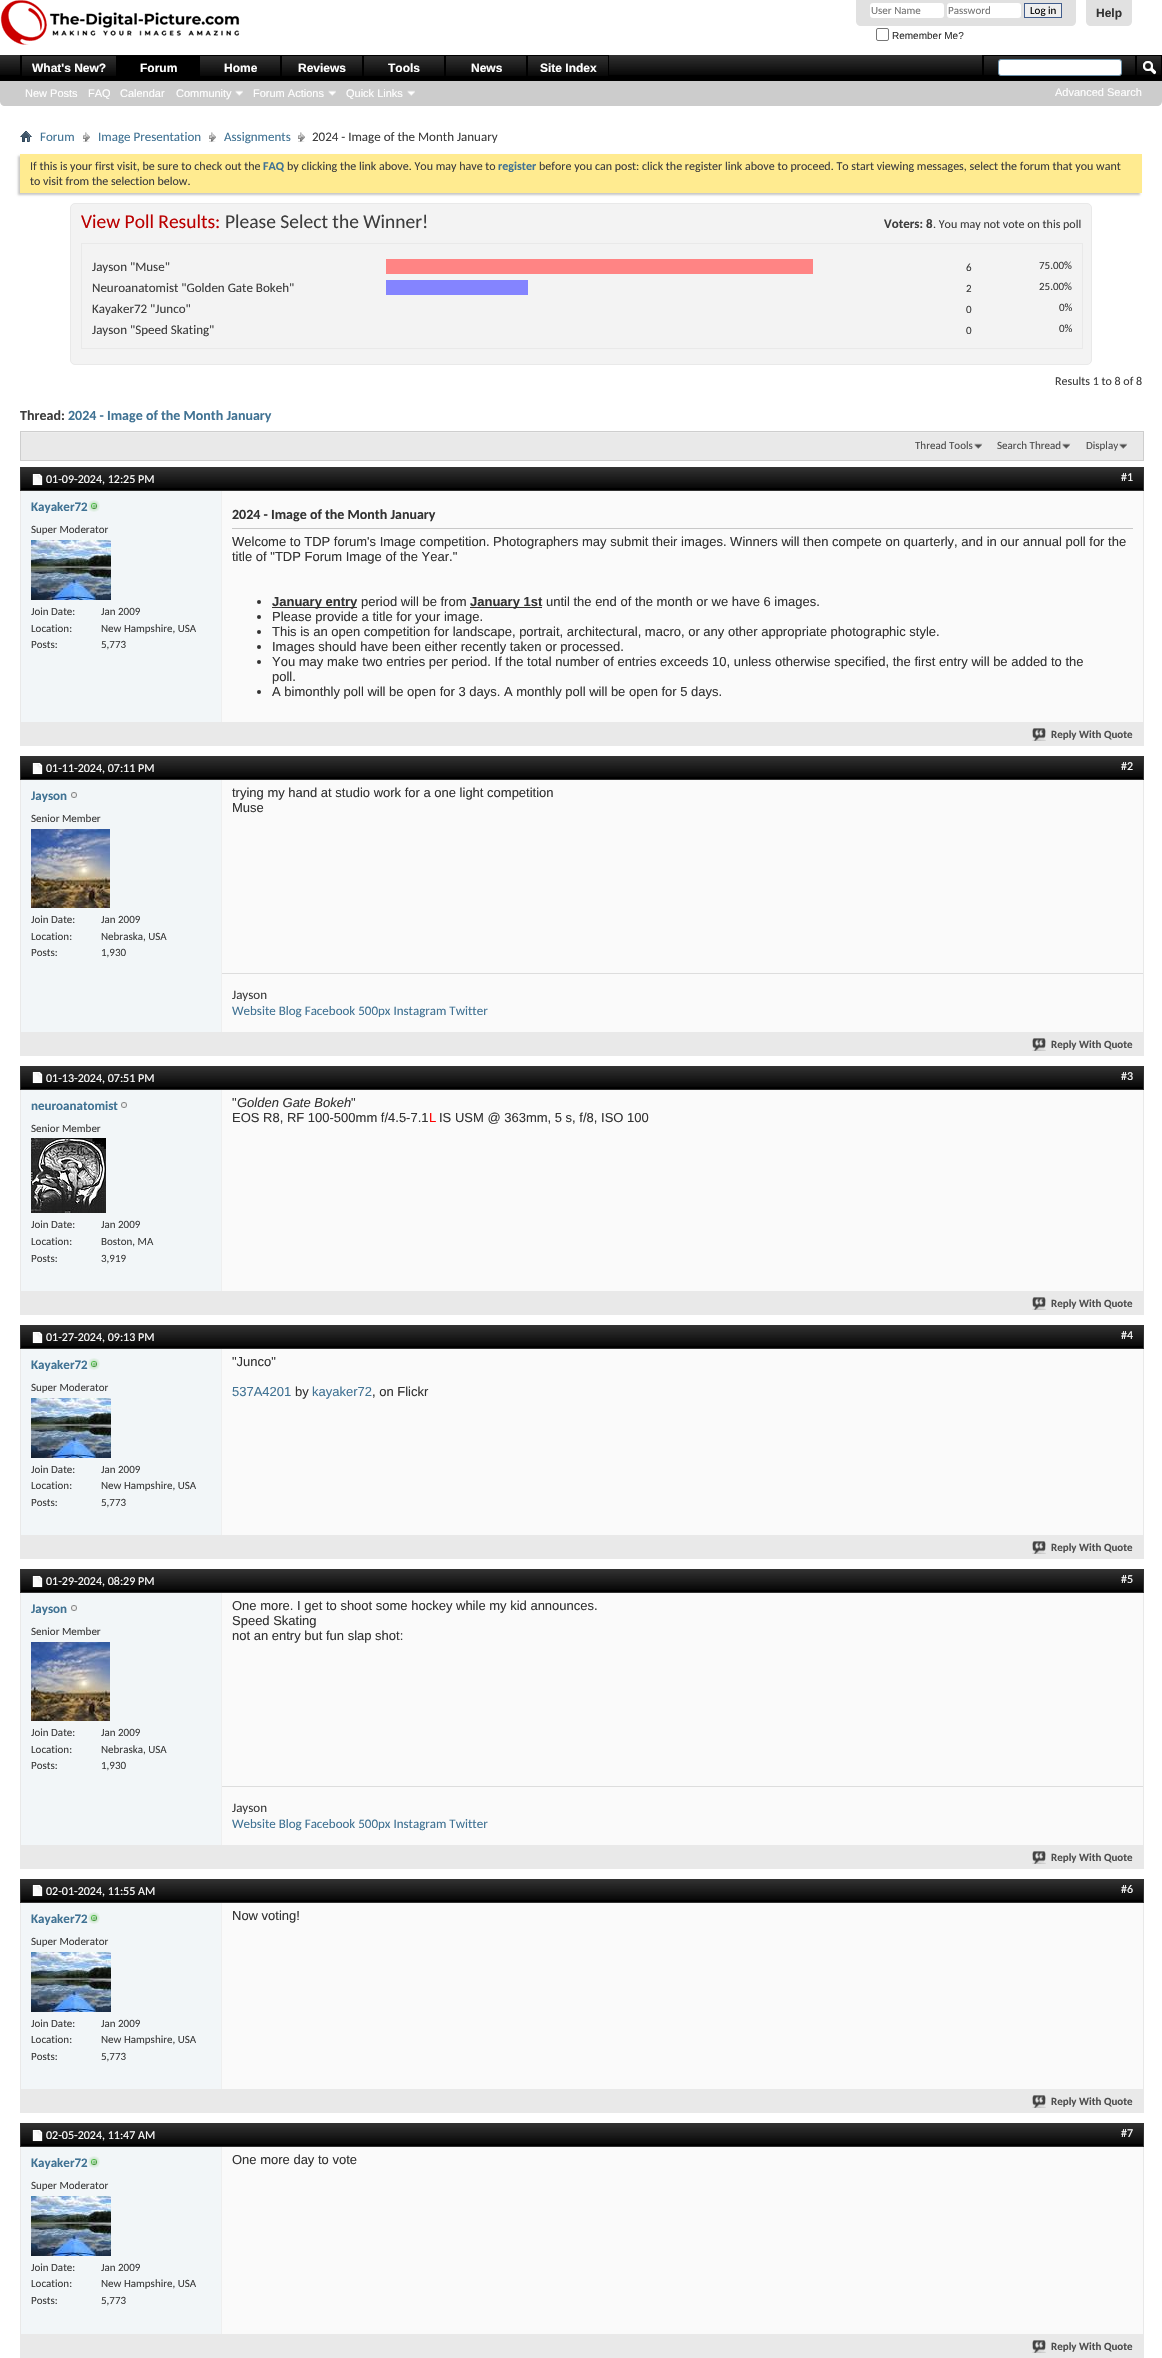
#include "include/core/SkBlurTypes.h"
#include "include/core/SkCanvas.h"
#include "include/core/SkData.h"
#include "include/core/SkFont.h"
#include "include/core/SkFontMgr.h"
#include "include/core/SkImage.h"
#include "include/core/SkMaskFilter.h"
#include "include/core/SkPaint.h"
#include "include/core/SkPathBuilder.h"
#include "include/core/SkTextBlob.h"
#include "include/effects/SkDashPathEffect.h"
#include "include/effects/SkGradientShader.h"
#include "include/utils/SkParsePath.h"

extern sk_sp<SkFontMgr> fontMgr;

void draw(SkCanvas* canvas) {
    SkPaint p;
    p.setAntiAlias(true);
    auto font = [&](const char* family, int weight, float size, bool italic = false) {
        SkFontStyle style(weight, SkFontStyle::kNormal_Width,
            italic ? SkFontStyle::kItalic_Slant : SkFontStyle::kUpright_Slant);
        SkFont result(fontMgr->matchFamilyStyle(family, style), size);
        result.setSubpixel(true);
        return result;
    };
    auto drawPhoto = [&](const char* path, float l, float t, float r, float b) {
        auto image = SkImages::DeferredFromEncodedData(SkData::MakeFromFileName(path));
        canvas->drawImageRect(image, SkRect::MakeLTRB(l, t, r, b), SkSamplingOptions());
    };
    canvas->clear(0xFFFFFFFF);
    drawPhoto("media/1.png", 0, 0, 240, 45);
    p.setColor(0xFFE1E1E1);
    canvas->drawPath(SkPathBuilder().moveTo(856, 0).lineTo(1076, 0).lineTo(1076, 21).cubicTo(1076, 24, 1074, 26, 1071, 26).lineTo(861, 26).cubicTo(858, 26, 856, 24, 856, 21).close().detach(), p);
    p.setColor(0xFFFFFFFF);
    canvas->drawRoundRect(SkRect::MakeLTRB(870, 3, 944, 18), 3, 3, p);
    auto font1 = font("Carlito", 400, 11);
    p.setColor(0xFF777777);
    canvas->drawString("User Name", 871, 14, font1, p);
    p.setColor(0xFFFFFFFF);
    canvas->drawRoundRect(SkRect::MakeLTRB(947, 3, 1021, 18), 3, 3, p);
    p.setColor(0xFF777777);
    canvas->drawString("Password", 948, 14, font1, p);
    p.setColor(0xFFEFEFEF);
    canvas->drawRect(SkRect::MakeLTRB(1024.5f, 3.5f, 1061.5f, 17.5f), p);
    p.setStyle(SkPaint::kStroke_Style);
    p.setStrokeWidth(1);
    p.setColor(0xFF415D8D);
    canvas->drawRect(SkRect::MakeLTRB(1024.5f, 3.5f, 1061.5f, 17.5f), p);
    p.setStyle(SkPaint::kFill_Style);
    p.setColor(0xFF000000);
    canvas->drawString("Log in", 1030, 14, font1, p);
    p.setStyle(SkPaint::kStroke_Style);
    p.setColor(0xFF767676);
    canvas->drawRoundRect(SkRect::MakeLTRB(876.5f, 28.5f, 888.5f, 40.5f), 1.5f, 1.5f, p);
    auto font2 = font("Liberation Sans", 400, 10);
    p.setStyle(SkPaint::kFill_Style);
    p.setColor(0xFF333333);
    canvas->drawString("Remember Me?", 892, 39, font2, p);
    p.setColor(0xFFE1E1E1);
    canvas->drawPath(SkPathBuilder().moveTo(1086, 0).lineTo(1132, 0).lineTo(1132, 21).cubicTo(1132, 24, 1130, 26, 1127, 26).lineTo(1091, 26).cubicTo(1088, 26, 1086, 24, 1086, 21).close().detach(), p);
    auto font3 = font("Liberation Sans", 700, 12);
    p.setColor(0xFF333333);
    canvas->drawString("Help", 1096, 17, font3, p);
    p.setColor(0xFFCCCCCC);
    canvas->drawPath(SkPathBuilder().moveTo(0, 55).lineTo(1162, 55).lineTo(1162, 101).cubicTo(1162, 104, 1160, 106, 1157, 106).lineTo(5, 106).cubicTo(2, 106, 0, 104, 0, 101).close().detach(), p);
    p.setColor(0xFF000000);
    canvas->drawRect(SkRect::MakeLTRB(0, 55, 1162, 80), p);
    drawPhoto("media/2.png", 0, 55, 1161, 75);
    {
        const struct { float l, t, r, b; SkColor color; } items[] = {
            {116, 55, 117, 81, 0xFF000000},
            {20, 55, 22, 81, 0xFF000000},
            {22, 55, 116, 75, 0xFF000000},
        };
        for (auto [l, t, r, b, color] : items) {
            p.setColor(color);
            canvas->drawRect(SkRect::MakeLTRB(l, t, r, b), p);
        }
    }
    drawPhoto("media/3.png", 22, 56, 116, 76);
    p.setColor(0xFFFFFFFF);
    canvas->drawString("What's New?", 32, 72, font3, p);
    p.setColor(0xFF000000);
    canvas->drawRect(SkRect::MakeLTRB(198, 55, 199, 80), p);
    canvas->drawRect(SkRect::MakeLTRB(117, 55, 198, 75), p);
    p.setColor(0xFFFFFFFF);
    canvas->drawString("Forum", 140, 72, font3, p);
    p.setColor(0xFF000000);
    canvas->drawRect(SkRect::MakeLTRB(280, 55, 282, 81), p);
    canvas->drawRect(SkRect::MakeLTRB(200, 55, 280, 75), p);
    drawPhoto("media/4.png", 200, 56, 280, 76);
    canvas->drawRect(SkRect::MakeLTRB(199, 55, 200, 81), p);
    p.setColor(0xFFFFFFFF);
    canvas->drawString("Home", 224, 72, font3, p);
    p.setColor(0xFF000000);
    canvas->drawRect(SkRect::MakeLTRB(362, 55, 364, 81), p);
    canvas->drawRect(SkRect::MakeLTRB(282, 55, 362, 75), p);
    drawPhoto("media/4.png", 282, 56, 362, 76);
    p.setColor(0xFFFFFFFF);
    canvas->drawString("Reviews", 298, 72, font3, p);
    p.setColor(0xFF000000);
    canvas->drawRect(SkRect::MakeLTRB(444, 55, 446, 81), p);
    canvas->drawRect(SkRect::MakeLTRB(364, 55, 444, 75), p);
    drawPhoto("media/4.png", 364, 56, 444, 76);
    p.setColor(0xFFFFFFFF);
    canvas->drawString("Tools", 388, 72, font3, p);
    p.setColor(0xFF000000);
    canvas->drawRect(SkRect::MakeLTRB(526, 55, 528, 81), p);
    canvas->drawRect(SkRect::MakeLTRB(446, 55, 526, 75), p);
    drawPhoto("media/4.png", 446, 56, 526, 76);
    p.setColor(0xFFFFFFFF);
    canvas->drawString("News", 471, 72, font3, p);
    p.setColor(0xFF000000);
    canvas->drawRect(SkRect::MakeLTRB(608, 55, 609, 81), p);
    canvas->drawRect(SkRect::MakeLTRB(528, 55, 608, 75), p);
    drawPhoto("media/4.png", 528, 56, 608, 76);
    p.setColor(0xFFFFFFFF);
    canvas->drawString("Site Index", 540, 72, font3, p);
    p.setColor(0xFF000000);
    canvas->drawRect(SkRect::MakeLTRB(0, 80, 1162, 81), p);
    auto font4 = font("Liberation Sans", 400, 11);
    p.setColor(0xFFFFFFFF);
    {
        const struct { const char* s; float x, y; } items[] = {
            {"New Posts", 25, 97},
            {"FAQ", 88, 97},
            {"Calendar", 120, 97},
            {"Community", 176, 97},
        };
        for (auto [s, x, y] : items) {
            canvas->drawString(s, x, y, font4, p);
        }
    }
    drawPhoto("media/5.png", 235, 90, 243, 96);
    canvas->drawString("Forum Actions", 253, 97, font4, p);
    drawPhoto("media/5.png", 328, 90, 336, 96);
    canvas->drawString("Quick Links", 346, 97, font4, p);
    drawPhoto("media/5.png", 407, 90, 415, 96);
    {
        const struct { float l, t, r, b; SkColor color; } items[] = {
            {982, 55, 983, 80, 0xFF000000},
            {983, 55, 1135, 56, 0xFF000000},
            {983, 55, 984, 80, 0xFF000000},
        };
        for (auto [l, t, r, b, color] : items) {
            p.setColor(color);
            canvas->drawRect(SkRect::MakeLTRB(l, t, r, b), p);
        }
    }
    p.setColor(0xFFFFFFFF);
    canvas->drawRoundRect(SkRect::MakeLTRB(998.5f, 59.5f, 1121.5f, 75.5f), 2.5f, 2.5f, p);
    p.setStyle(SkPaint::kStroke_Style);
    p.setColor(0xFF6B91AB);
    canvas->drawRoundRect(SkRect::MakeLTRB(998.5f, 59.5f, 1121.5f, 75.5f), 2.5f, 2.5f, p);
    p.setStyle(SkPaint::kFill_Style);
    {
        const struct { float l, t, r, b; SkColor color; } items[] = {
            {1135, 55, 1136, 80, 0xFF000000},
            {1136, 55, 1161, 56, 0xFF000000},
            {1136, 55, 1137, 80, 0xFF000000},
        };
        for (auto [l, t, r, b, color] : items) {
            p.setColor(color);
            canvas->drawRect(SkRect::MakeLTRB(l, t, r, b), p);
        }
    }
    drawPhoto("media/6.png", 1143, 61, 1156, 75);
    p.setColor(0xFFFFFFFF);
    canvas->drawString("Advanced Search", 1055, 96, font4, p);
    drawPhoto("media/7.png", 20, 131, 32, 142);
    drawPhoto("media/8.png", 83, 132, 90, 142);
    auto font5 = font("Carlito", 400, 13);
    p.setColor(0xFF417394);
    canvas->drawString("Forum", 40, 141, font5, p);
    drawPhoto("media/8.png", 209, 132, 216, 142);
    canvas->drawString("Image Presentation", 98, 141, font5, p);
    drawPhoto("media/8.png", 298, 132, 305, 142);
    canvas->drawString("Assignments", 224, 141, font5, p);
    p.setColor(0xFF3E3E3E);
    canvas->drawString("2024 - Image of the Month January", 312, 141, font5, p);
    p.setColor(0xFFC8C8C8);
    p.setMaskFilter(SkMaskFilter::MakeBlur(kNormal_SkBlurStyle, 1));
    canvas->drawRect(SkRect::MakeLTRB(18, 156, 1140, 195), p);
    p.setMaskFilter(nullptr);
    p.setColor(0xFFFFEB90);
    canvas->drawRect(SkRect::MakeLTRB(20, 154, 1142, 193), p);
    auto font6 = font("Carlito", 400, 12);
    p.setColor(0xFF3E3E3E);
    canvas->drawString("If this is your first visit, be sure to check out the", 30, 170, font6, p);
    auto font7 = font("Carlito", 700, 12);
    p.setColor(0xFF417394);
    canvas->drawString("FAQ", 263, 170, font7, p);
    p.setColor(0xFF3E3E3E);
    canvas->drawString("by clicking the link above. You may have to", 287, 170, font6, p);
    p.setColor(0xFF417394);
    canvas->drawString("register", 498, 170, font7, p);
    p.setColor(0xFF3E3E3E);
    canvas->drawString("before you can post: click the register link above to proceed. To start viewing messages, select the forum that you want", 539, 170, font6, p);
    canvas->drawString("to visit from the selection below.", 30, 185, font6, p);
    p.setColor(0xFFF3F3F3);
    canvas->drawRoundRect(SkRect::MakeLTRB(70.5f, 203.5f, 1091.5f, 364.5f), 4.5f, 4.5f, p);
    p.setStyle(SkPaint::kStroke_Style);
    p.setColor(0xFFE9E9E9);
    canvas->drawRoundRect(SkRect::MakeLTRB(70.5f, 203.5f, 1091.5f, 364.5f), 4.5f, 4.5f, p);
    auto font8 = font("Carlito", 400, 19.5f);
    p.setStyle(SkPaint::kFill_Style);
    p.setColor(0xFFBB0000);
    canvas->drawString("View Poll Results:", 81, 228, font8, p);
    p.setColor(0xFF3E3E3E);
    canvas->drawString("Please Select the Winner!", 225, 228, font8, p);
    auto font9 = font("Carlito", 700, 13);
    canvas->drawString("Voters: 8", 884, 228, font9, p);
    canvas->drawString(". You may not vote on this poll", 933, 228, font6, p);
    p.setStyle(SkPaint::kStroke_Style);
    p.setColor(0xFFE9E9E9);
    canvas->drawRect(SkRect::MakeLTRB(81.5f, 243.5f, 1082.5f, 348.5f), p);
    p.setStyle(SkPaint::kFill_Style);
    p.setColor(0xFF3E3E3E);
    canvas->drawString("Jayson \"Muse\"", 92, 271, font5, p);
    p.setColor(0xFFFF8484);
    canvas->drawRect(SkRect::MakeLTRB(386, 259, 813, 274), p);
    p.setColor(0xFF3E3E3E);
    canvas->drawString("6", 966, 271, font1, p);
    canvas->drawString("75.00%", 1039, 269, font1, p);
    canvas->drawString("Neuroanatomist \"Golden Gate Bokeh\"", 92, 292, font5, p);
    p.setColor(0xFF8484FF);
    canvas->drawRect(SkRect::MakeLTRB(386, 280, 528, 295), p);
    p.setColor(0xFF3E3E3E);
    canvas->drawString("2", 966, 292, font1, p);
    canvas->drawString("25.00%", 1039, 290, font1, p);
    canvas->drawString("Kayaker72 \"Junco\"", 92, 313, font5, p);
    canvas->drawString("0", 966, 313, font1, p);
    canvas->drawString("0%", 1059, 311, font1, p);
    canvas->drawString("Jayson \"Speed Skating\"", 92, 334, font5, p);
    canvas->drawString("0", 966, 334, font1, p);
    canvas->drawString("0%", 1059, 332, font1, p);
    canvas->drawString("Results 1 to 8 of 8", 1055, 385, font6, p);
    auto font10 = font("Carlito", 700, 14);
    canvas->drawString("Thread:", 20, 420, font10, p);
    p.setColor(0xFF417394);
    canvas->drawString("2024 - Image of the Month January", 68, 420, font10, p);
    p.setColor(0xFFE9E9E9);
    canvas->drawRect(SkRect::MakeLTRB(21, 433, 1143, 460), p);
    p.setColor(0xFFEDEDED);
    canvas->drawRect(SkRect::MakeLTRB(20, 432, 1144, 433), p);
    p.setStyle(SkPaint::kStroke_Style);
    p.setColor(0xFFCECECE);
    canvas->drawRect(SkRect::MakeLTRB(20.5f, 431.5f, 1143.5f, 460.5f), p);
    drawPhoto("media/9.png", 974, 443, 983, 450);
    p.setStyle(SkPaint::kFill_Style);
    p.setColor(0xFF4E4E4E);
    canvas->drawString("Thread Tools", 915, 449, font1, p);
    drawPhoto("media/9.png", 1062, 443, 1071, 450);
    canvas->drawString("Search Thread", 997, 449, font1, p);
    drawPhoto("media/9.png", 1119, 443, 1128, 450);
    canvas->drawString("Display", 1086, 449, font1, p);
    p.setStyle(SkPaint::kStroke_Style);
    p.setColor(0xFFE9E9E9);
    canvas->drawRect(SkRect::MakeLTRB(20.5f, 467.5f, 1143.5f, 745.5f), p);
    p.setStyle(SkPaint::kFill_Style);
    p.setColor(0xFF000000);
    canvas->drawRect(SkRect::MakeLTRB(21, 468, 1143, 490), p);
    drawPhoto("media/10.png", 21, 468, 1143, 488);
    p.setStyle(SkPaint::kStroke_Style);
    p.setColor(0xFF333333);
    canvas->drawRect(SkRect::MakeLTRB(20.5f, 467.5f, 1143.5f, 490.5f), p);
    drawPhoto("media/11.png", 32, 473, 43, 486);
    p.setStyle(SkPaint::kFill_Style);
    p.setColor(0xFFFFFFFF);
    canvas->drawString("01-09-2024, 12:25 PM", 46, 483, font6, p);
    canvas->drawString("#1", 1121, 481, font6, p);
    p.setColor(0xFFF2F6F8);
    canvas->drawRect(SkRect::MakeLTRB(21, 491, 221, 722), p);
    p.setColor(0xFF417394);
    canvas->drawString("Kayaker72", 31, 511, font9, p);
    drawPhoto("media/12.png", 88, 500, 100, 512);
    p.setColor(0xFF3E3E3E);
    canvas->drawString("Super Moderator", 31, 533, font1, p);
    drawPhoto("media/13.png", 31, 540, 111, 600);
    {
        const struct { const char* s; float x, y; } items[] = {
            {"Join Date:", 31, 615},
            {"Jan 2009", 101, 615},
            {"Location:", 31, 632},
            {"New Hampshire, USA", 101, 632},
            {"Posts:", 31, 648},
            {"5,773", 101, 648},
        };
        for (auto [s, x, y] : items) {
            canvas->drawString(s, x, y, font1, p);
        }
    }
    {
        const struct { float l, t, r, b; SkColor color; } items[] = {
            {222, 491, 1143, 722, 0xFFFAFAFA},
            {221, 491, 222, 722, 0xFFEFEFEF},
            {232, 528, 1133, 529, 0xFFC8C8C8},
        };
        for (auto [l, t, r, b, color] : items) {
            p.setColor(color);
            canvas->drawRect(SkRect::MakeLTRB(l, t, r, b), p);
        }
    }
    p.setColor(0xFF333333);
    canvas->drawString("2024 - Image of the Month January", 232, 519, font10, p);
    auto font11 = font("Liberation Sans", 400, 13);
    canvas->drawString("Welcome to TDP forum's Image competition. Photographers may submit their images. Winners will then compete on quarterly, and in our annual poll for the", 232, 546, font11, p);
    canvas->drawString("title of \"TDP Forum Image of the Year.\"", 232, 561, font11, p);
    canvas->drawCircle(259, 602, 2, p);
    canvas->drawRect(SkRect::MakeLTRB(272, 607, 357, 608), p);
    auto font12 = font("Liberation Sans", 700, 13);
    canvas->drawString("January entry", 272, 606, font12, p);
    canvas->drawString("period will be from", 361, 606, font11, p);
    canvas->drawRect(SkRect::MakeLTRB(470, 607, 542, 608), p);
    canvas->drawString("January 1st", 470, 606, font12, p);
    canvas->drawString("until the end of the month or we have 6 images.", 546, 606, font11, p);
    canvas->drawCircle(259, 617, 2, p);
    canvas->drawString("Please provide a title for your image.", 272, 621, font11, p);
    canvas->drawCircle(259, 632, 2, p);
    canvas->drawString("This is an open competition for landscape, portrait, architectural, macro, or any other appropriate photographic style.", 272, 636, font11, p);
    canvas->drawCircle(259, 647, 2, p);
    canvas->drawString("Images should have been either recently taken or processed.", 272, 651, font11, p);
    canvas->drawCircle(259, 662, 2, p);
    canvas->drawString("You may make two entries per period. If the total number of entries exceeds 10, unless otherwise specified, the first entry will be added to the", 272, 666, font11, p);
    canvas->drawString("poll.", 272, 681, font11, p);
    canvas->drawCircle(259, 692, 2, p);
    canvas->drawString("A bimonthly poll will be open for 3 days. A monthly poll will be open for 5 days.", 272, 696, font11, p);
    p.setColor(0xFFE9E9E9);
    canvas->drawRect(SkRect::MakeLTRB(21, 722, 1143, 745), p);
    drawPhoto("media/14.png", 1032, 728, 1046, 741);
    auto font13 = font("Carlito", 700, 11);
    p.setColor(0xFF4E4E4E);
    canvas->drawString("Reply With Quote", 1051, 738, font13, p);
    p.setStyle(SkPaint::kStroke_Style);
    p.setColor(0xFFE9E9E9);
    canvas->drawRect(SkRect::MakeLTRB(20.5f, 756.5f, 1143.5f, 1055.5f), p);
    p.setStyle(SkPaint::kFill_Style);
    p.setColor(0xFF000000);
    canvas->drawRect(SkRect::MakeLTRB(21, 757, 1143, 779), p);
    drawPhoto("media/10.png", 21, 757, 1143, 777);
    p.setStyle(SkPaint::kStroke_Style);
    p.setColor(0xFF333333);
    canvas->drawRect(SkRect::MakeLTRB(20.5f, 756.5f, 1143.5f, 779.5f), p);
    drawPhoto("media/11.png", 32, 762, 43, 775);
    p.setStyle(SkPaint::kFill_Style);
    p.setColor(0xFFFFFFFF);
    canvas->drawString("01-11-2024, 07:11 PM", 46, 772, font6, p);
    canvas->drawString("#2", 1121, 770, font6, p);
    p.setColor(0xFFF2F6F8);
    canvas->drawRect(SkRect::MakeLTRB(21, 780, 221, 1032), p);
    p.setColor(0xFF417394);
    canvas->drawString("Jayson", 31, 800, font9, p);
    drawPhoto("media/15.png", 71, 792, 77, 798);
    p.setColor(0xFF3E3E3E);
    canvas->drawString("Senior Member", 31, 822, font1, p);
    drawPhoto("media/16.png", 31, 829, 110, 908);
    {
        const struct { const char* s; float x, y; } items[] = {
            {"Join Date:", 31, 923},
            {"Jan 2009", 101, 923},
            {"Location:", 31, 940},
            {"Nebraska, USA", 101, 940},
            {"Posts:", 31, 956},
            {"1,930", 101, 956},
        };
        for (auto [s, x, y] : items) {
            canvas->drawString(s, x, y, font1, p);
        }
    }
    p.setColor(0xFFFAFAFA);
    canvas->drawRect(SkRect::MakeLTRB(222, 780, 1143, 1032), p);
    p.setColor(0xFFEFEFEF);
    canvas->drawRect(SkRect::MakeLTRB(221, 780, 222, 1032), p);
    p.setColor(0xFF333333);
    canvas->drawString("trying my hand at studio work for a one light competition", 232, 797, font11, p);
    canvas->drawString("Muse", 232, 812, font11, p);
    p.setColor(0xFFDDDDDD);
    canvas->drawRect(SkRect::MakeLTRB(222, 973, 1143, 974), p);
    p.setColor(0xFF3E3E3E);
    canvas->drawString("Jayson", 232, 999, font5, p);
    p.setColor(0xFF417394);
    canvas->drawString("Website Blog Facebook 500px Instagram Twitter", 232, 1015, font5, p);
    p.setColor(0xFFE9E9E9);
    canvas->drawRect(SkRect::MakeLTRB(21, 1032, 1143, 1055), p);
    drawPhoto("media/14.png", 1032, 1038, 1046, 1051);
    p.setColor(0xFF4E4E4E);
    canvas->drawString("Reply With Quote", 1051, 1048, font13, p);
    p.setStyle(SkPaint::kStroke_Style);
    p.setColor(0xFFE9E9E9);
    canvas->drawRect(SkRect::MakeLTRB(20.5f, 1066.5f, 1143.5f, 1314.5f), p);
    p.setStyle(SkPaint::kFill_Style);
    p.setColor(0xFF000000);
    canvas->drawRect(SkRect::MakeLTRB(21, 1067, 1143, 1089), p);
    drawPhoto("media/10.png", 21, 1067, 1143, 1087);
    p.setStyle(SkPaint::kStroke_Style);
    p.setColor(0xFF333333);
    canvas->drawRect(SkRect::MakeLTRB(20.5f, 1066.5f, 1143.5f, 1089.5f), p);
    drawPhoto("media/17.png", 32, 1071, 43, 1084);
    p.setStyle(SkPaint::kFill_Style);
    p.setColor(0xFFFFFFFF);
    canvas->drawString("01-13-2024, 07:51 PM", 46, 1082, font6, p);
    canvas->drawString("#3", 1121, 1080, font6, p);
    p.setColor(0xFFF2F6F8);
    canvas->drawRect(SkRect::MakeLTRB(21, 1090, 221, 1291), p);
    p.setColor(0xFF417394);
    canvas->drawString("neuroanatomist", 31, 1110, font9, p);
    drawPhoto("media/15.png", 121, 1102, 127, 1108);
    p.setColor(0xFF3E3E3E);
    canvas->drawString("Senior Member", 31, 1132, font1, p);
    drawPhoto("media/18.png", 31, 1138, 106, 1213);
    {
        const struct { const char* s; float x, y; } items[] = {
            {"Join Date:", 31, 1228},
            {"Jan 2009", 101, 1228},
            {"Location:", 31, 1245},
            {"Boston, MA", 101, 1245},
            {"Posts:", 31, 1262},
            {"3,919", 101, 1262},
        };
        for (auto [s, x, y] : items) {
            canvas->drawString(s, x, y, font1, p);
        }
    }
    p.setColor(0xFFFAFAFA);
    canvas->drawRect(SkRect::MakeLTRB(222, 1090, 1143, 1291), p);
    p.setColor(0xFFEFEFEF);
    canvas->drawRect(SkRect::MakeLTRB(221, 1090, 222, 1291), p);
    p.setColor(0xFF333333);
    canvas->drawString("\"", 232, 1107, font11, p);
    auto font14 = font("Liberation Sans", 400, 13, true);
    canvas->drawString("Golden Gate Bokeh", 237, 1107, font14, p);
    canvas->drawString("\"", 351, 1107, font11, p);
    canvas->drawString("EOS R8, RF 100-500mm f/4.5-7.1", 232, 1122, font11, p);
    p.setColor(0xFFFF0000);
    canvas->drawString("L", 429, 1122, font11, p);
    p.setColor(0xFF333333);
    canvas->drawString("IS USM @ 363mm, 5 s, f/8, ISO 100", 439, 1122, font11, p);
    p.setColor(0xFFE9E9E9);
    canvas->drawRect(SkRect::MakeLTRB(21, 1291, 1143, 1314), p);
    drawPhoto("media/14.png", 1032, 1297, 1046, 1310);
    p.setColor(0xFF4E4E4E);
    canvas->drawString("Reply With Quote", 1051, 1307, font13, p);
    p.setStyle(SkPaint::kStroke_Style);
    p.setColor(0xFFE9E9E9);
    canvas->drawRect(SkRect::MakeLTRB(20.5f, 1325.5f, 1143.5f, 1558.5f), p);
    p.setStyle(SkPaint::kFill_Style);
    p.setColor(0xFF000000);
    canvas->drawRect(SkRect::MakeLTRB(21, 1326, 1143, 1348), p);
    drawPhoto("media/10.png", 21, 1326, 1143, 1346);
    p.setStyle(SkPaint::kStroke_Style);
    p.setColor(0xFF333333);
    canvas->drawRect(SkRect::MakeLTRB(20.5f, 1325.5f, 1143.5f, 1348.5f), p);
    drawPhoto("media/11.png", 32, 1331, 43, 1344);
    p.setStyle(SkPaint::kFill_Style);
    p.setColor(0xFFFFFFFF);
    canvas->drawString("01-27-2024, 09:13 PM", 46, 1341, font6, p);
    canvas->drawString("#4", 1121, 1339, font6, p);
    p.setColor(0xFFF2F6F8);
    canvas->drawRect(SkRect::MakeLTRB(21, 1349, 221, 1535), p);
    p.setColor(0xFF417394);
    canvas->drawString("Kayaker72", 31, 1369, font9, p);
    drawPhoto("media/12.png", 88, 1358, 100, 1370);
    p.setColor(0xFF3E3E3E);
    canvas->drawString("Super Moderator", 31, 1391, font1, p);
    drawPhoto("media/13.png", 31, 1398, 111, 1458);
    {
        const struct { const char* s; float x, y; } items[] = {
            {"Join Date:", 31, 1473},
            {"Jan 2009", 101, 1473},
            {"Location:", 31, 1489},
            {"New Hampshire, USA", 101, 1489},
            {"Posts:", 31, 1506},
            {"5,773", 101, 1506},
        };
        for (auto [s, x, y] : items) {
            canvas->drawString(s, x, y, font1, p);
        }
    }
    p.setColor(0xFFFAFAFA);
    canvas->drawRect(SkRect::MakeLTRB(222, 1349, 1143, 1535), p);
    p.setColor(0xFFEFEFEF);
    canvas->drawRect(SkRect::MakeLTRB(221, 1349, 222, 1535), p);
    p.setColor(0xFF333333);
    canvas->drawString("\"Junco\"", 232, 1366, font11, p);
    p.setColor(0xFF417394);
    canvas->drawString("537A4201", 232, 1396, font11, p);
    p.setColor(0xFF333333);
    canvas->drawString("by", 295, 1396, font11, p);
    p.setColor(0xFF417394);
    canvas->drawString("kayaker72", 312, 1396, font11, p);
    p.setColor(0xFF333333);
    canvas->drawString(", on Flickr", 372, 1396, font11, p);
    p.setColor(0xFFE9E9E9);
    canvas->drawRect(SkRect::MakeLTRB(21, 1535, 1143, 1558), p);
    drawPhoto("media/14.png", 1032, 1541, 1046, 1554);
    p.setColor(0xFF4E4E4E);
    canvas->drawString("Reply With Quote", 1051, 1551, font13, p);
    p.setStyle(SkPaint::kStroke_Style);
    p.setColor(0xFFE9E9E9);
    canvas->drawRect(SkRect::MakeLTRB(20.5f, 1569.5f, 1143.5f, 1868.5f), p);
    p.setStyle(SkPaint::kFill_Style);
    p.setColor(0xFF000000);
    canvas->drawRect(SkRect::MakeLTRB(21, 1570, 1143, 1592), p);
    drawPhoto("media/10.png", 21, 1570, 1143, 1590);
    p.setStyle(SkPaint::kStroke_Style);
    p.setColor(0xFF333333);
    canvas->drawRect(SkRect::MakeLTRB(20.5f, 1569.5f, 1143.5f, 1592.5f), p);
    drawPhoto("media/11.png", 32, 1575, 43, 1588);
    p.setStyle(SkPaint::kFill_Style);
    p.setColor(0xFFFFFFFF);
    canvas->drawString("01-29-2024, 08:29 PM", 46, 1585, font6, p);
    canvas->drawString("#5", 1121, 1583, font6, p);
    p.setColor(0xFFF2F6F8);
    canvas->drawRect(SkRect::MakeLTRB(21, 1593, 221, 1845), p);
    p.setColor(0xFF417394);
    canvas->drawString("Jayson", 31, 1613, font9, p);
    drawPhoto("media/15.png", 71, 1605, 77, 1611);
    p.setColor(0xFF3E3E3E);
    canvas->drawString("Senior Member", 31, 1635, font1, p);
    drawPhoto("media/16.png", 31, 1642, 110, 1721);
    {
        const struct { const char* s; float x, y; } items[] = {
            {"Join Date:", 31, 1736},
            {"Jan 2009", 101, 1736},
            {"Location:", 31, 1753},
            {"Nebraska, USA", 101, 1753},
            {"Posts:", 31, 1769},
            {"1,930", 101, 1769},
        };
        for (auto [s, x, y] : items) {
            canvas->drawString(s, x, y, font1, p);
        }
    }
    p.setColor(0xFFFAFAFA);
    canvas->drawRect(SkRect::MakeLTRB(222, 1593, 1143, 1845), p);
    p.setColor(0xFFEFEFEF);
    canvas->drawRect(SkRect::MakeLTRB(221, 1593, 222, 1845), p);
    p.setColor(0xFF333333);
    {
        const struct { const char* s; float x, y; } items[] = {
            {"One more. I get to shoot some hockey while my kid announces.", 232, 1610},
            {"Speed Skating", 232, 1625},
            {"not an entry but fun slap shot:", 232, 1640},
        };
        for (auto [s, x, y] : items) {
            canvas->drawString(s, x, y, font11, p);
        }
    }
    p.setColor(0xFFDDDDDD);
    canvas->drawRect(SkRect::MakeLTRB(222, 1786, 1143, 1787), p);
    p.setColor(0xFF3E3E3E);
    canvas->drawString("Jayson", 232, 1812, font5, p);
    p.setColor(0xFF417394);
    canvas->drawString("Website Blog Facebook 500px Instagram Twitter", 232, 1828, font5, p);
    p.setColor(0xFFE9E9E9);
    canvas->drawRect(SkRect::MakeLTRB(21, 1845, 1143, 1868), p);
    drawPhoto("media/14.png", 1032, 1851, 1046, 1864);
    p.setColor(0xFF4E4E4E);
    canvas->drawString("Reply With Quote", 1051, 1861, font13, p);
    p.setStyle(SkPaint::kStroke_Style);
    p.setColor(0xFFE9E9E9);
    canvas->drawRect(SkRect::MakeLTRB(20.5f, 1879.5f, 1143.5f, 2112.5f), p);
    p.setStyle(SkPaint::kFill_Style);
    p.setColor(0xFF000000);
    canvas->drawRect(SkRect::MakeLTRB(21, 1880, 1143, 1902), p);
    drawPhoto("media/10.png", 21, 1880, 1143, 1900);
    p.setStyle(SkPaint::kStroke_Style);
    p.setColor(0xFF333333);
    canvas->drawRect(SkRect::MakeLTRB(20.5f, 1879.5f, 1143.5f, 1902.5f), p);
    drawPhoto("media/17.png", 32, 1884, 43, 1897);
    p.setStyle(SkPaint::kFill_Style);
    p.setColor(0xFFFFFFFF);
    canvas->drawString("02-01-2024, 11:55 AM", 46, 1895, font6, p);
    canvas->drawString("#6", 1121, 1893, font6, p);
    p.setColor(0xFFF2F6F8);
    canvas->drawRect(SkRect::MakeLTRB(21, 1903, 221, 2089), p);
    p.setColor(0xFF417394);
    canvas->drawString("Kayaker72", 31, 1923, font9, p);
    drawPhoto("media/12.png", 88, 1912, 100, 1924);
    p.setColor(0xFF3E3E3E);
    canvas->drawString("Super Moderator", 31, 1945, font1, p);
    drawPhoto("media/13.png", 31, 1952, 111, 2012);
    {
        const struct { const char* s; float x, y; } items[] = {
            {"Join Date:", 31, 2027},
            {"Jan 2009", 101, 2027},
            {"Location:", 31, 2043},
            {"New Hampshire, USA", 101, 2043},
            {"Posts:", 31, 2060},
            {"5,773", 101, 2060},
        };
        for (auto [s, x, y] : items) {
            canvas->drawString(s, x, y, font1, p);
        }
    }
    p.setColor(0xFFFAFAFA);
    canvas->drawRect(SkRect::MakeLTRB(222, 1903, 1143, 2089), p);
    p.setColor(0xFFEFEFEF);
    canvas->drawRect(SkRect::MakeLTRB(221, 1903, 222, 2089), p);
    p.setColor(0xFF333333);
    canvas->drawString("Now voting!", 232, 1920, font11, p);
    p.setColor(0xFFE9E9E9);
    canvas->drawRect(SkRect::MakeLTRB(21, 2089, 1143, 2112), p);
    drawPhoto("media/14.png", 1032, 2095, 1046, 2108);
    p.setColor(0xFF4E4E4E);
    canvas->drawString("Reply With Quote", 1051, 2105, font13, p);
    p.setStyle(SkPaint::kStroke_Style);
    p.setColor(0xFFE9E9E9);
    canvas->drawRect(SkRect::MakeLTRB(20.5f, 2123.5f, 1143.5f, 2357.5f), p);
    p.setStyle(SkPaint::kFill_Style);
    p.setColor(0xFF000000);
    canvas->drawRect(SkRect::MakeLTRB(21, 2124, 1143, 2146), p);
    drawPhoto("media/10.png", 21, 2124, 1143, 2144);
    p.setStyle(SkPaint::kStroke_Style);
    p.setColor(0xFF333333);
    canvas->drawRect(SkRect::MakeLTRB(20.5f, 2123.5f, 1143.5f, 2146.5f), p);
    drawPhoto("media/11.png", 32, 2129, 43, 2142);
    p.setStyle(SkPaint::kFill_Style);
    p.setColor(0xFFFFFFFF);
    canvas->drawString("02-05-2024, 11:47 AM", 46, 2139, font6, p);
    canvas->drawString("#7", 1121, 2137, font6, p);
    p.setColor(0xFFF2F6F8);
    canvas->drawRect(SkRect::MakeLTRB(21, 2147, 221, 2334), p);
    p.setColor(0xFF417394);
    canvas->drawString("Kayaker72", 31, 2167, font9, p);
    drawPhoto("media/12.png", 88, 2156, 100, 2168);
    p.setColor(0xFF3E3E3E);
    canvas->drawString("Super Moderator", 31, 2189, font1, p);
    drawPhoto("media/13.png", 31, 2196, 111, 2256);
    {
        const struct { const char* s; float x, y; } items[] = {
            {"Join Date:", 31, 2271},
            {"Jan 2009", 101, 2271},
            {"Location:", 31, 2287},
            {"New Hampshire, USA", 101, 2287},
            {"Posts:", 31, 2304},
            {"5,773", 101, 2304},
        };
        for (auto [s, x, y] : items) {
            canvas->drawString(s, x, y, font1, p);
        }
    }
    p.setColor(0xFFFAFAFA);
    canvas->drawRect(SkRect::MakeLTRB(222, 2147, 1143, 2334), p);
    p.setColor(0xFFEFEFEF);
    canvas->drawRect(SkRect::MakeLTRB(221, 2147, 222, 2334), p);
    p.setColor(0xFF333333);
    canvas->drawString("One more day to vote", 232, 2164, font11, p);
    p.setColor(0xFFE9E9E9);
    canvas->drawRect(SkRect::MakeLTRB(21, 2334, 1143, 2357), p);
    drawPhoto("media/14.png", 1032, 2340, 1046, 2353);
    p.setColor(0xFF4E4E4E);
    canvas->drawString("Reply With Quote", 1051, 2350, font13, p);
}
